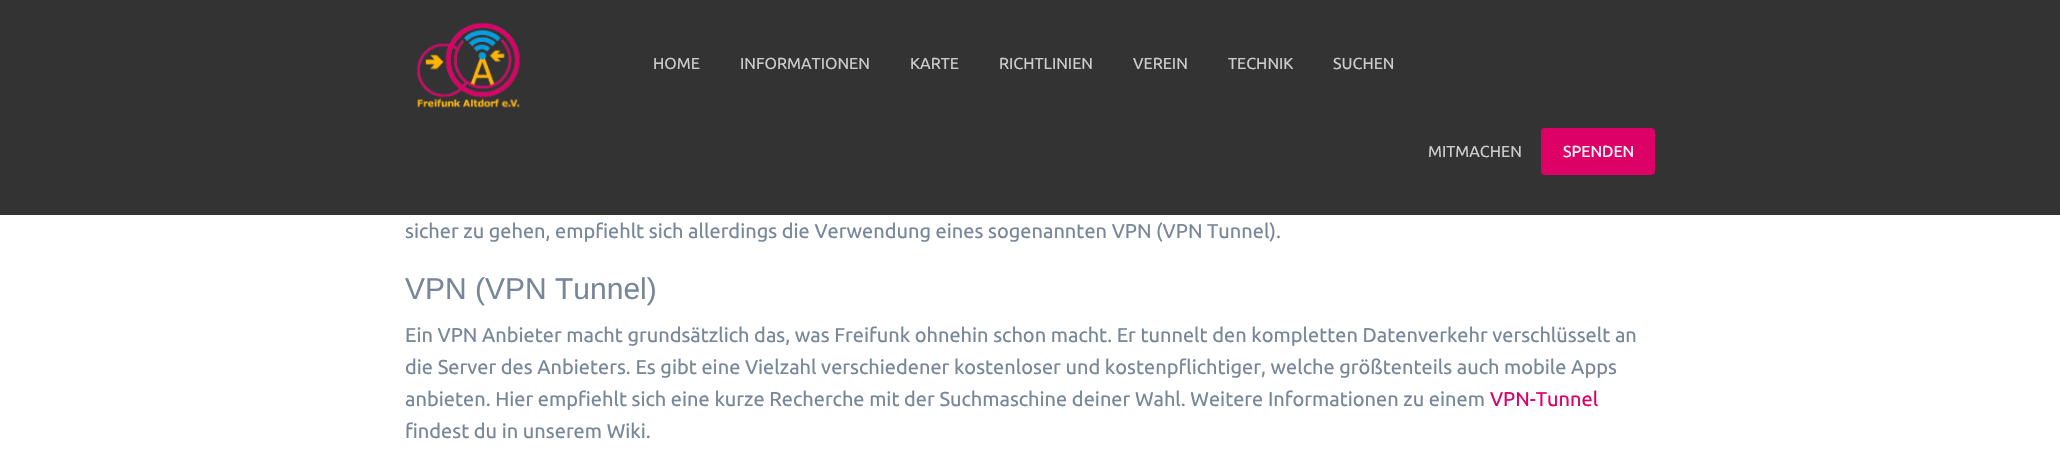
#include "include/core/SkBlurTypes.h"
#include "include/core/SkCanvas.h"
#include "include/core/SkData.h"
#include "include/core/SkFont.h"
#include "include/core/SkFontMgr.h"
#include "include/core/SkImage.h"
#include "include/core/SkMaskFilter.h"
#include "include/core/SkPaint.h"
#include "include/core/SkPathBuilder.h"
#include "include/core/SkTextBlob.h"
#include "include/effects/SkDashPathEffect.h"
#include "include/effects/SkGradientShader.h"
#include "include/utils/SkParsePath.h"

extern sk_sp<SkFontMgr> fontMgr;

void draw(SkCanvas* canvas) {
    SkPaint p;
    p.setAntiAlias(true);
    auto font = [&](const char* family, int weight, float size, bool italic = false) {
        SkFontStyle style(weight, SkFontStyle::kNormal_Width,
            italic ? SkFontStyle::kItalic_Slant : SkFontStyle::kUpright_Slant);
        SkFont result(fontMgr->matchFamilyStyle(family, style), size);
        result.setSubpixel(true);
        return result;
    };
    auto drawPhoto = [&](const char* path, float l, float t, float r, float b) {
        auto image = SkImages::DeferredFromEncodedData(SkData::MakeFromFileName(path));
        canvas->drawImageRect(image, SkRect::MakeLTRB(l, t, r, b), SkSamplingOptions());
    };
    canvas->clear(0xFFFFFFFF);
    p.setColor(0xFF333333);
    canvas->drawRect(SkRect::MakeLTRB(0, 0, 2060, 215), p);
    drawPhoto("media/1.png", 417, 22, 520, 108);
    auto font1 = font("Ubuntu", 400, 16);
    p.setColor(0xFFCCCCCC);
    {
        const struct { const char* s; float x, y; } items[] = {
            {"HOME", 653, 69},
            {"INFORMATIONEN", 740, 69},
            {"KARTE", 910, 69},
            {"RICHTLINIEN", 999, 69},
            {"VEREIN", 1133, 69},
            {"TECHNIK", 1228, 69},
            {"SUCHEN", 1333, 69},
            {"MITMACHEN", 1428, 157},
        };
        for (auto [s, x, y] : items) {
            canvas->drawString(s, x, y, font1, p);
        }
    }
    p.setColor(0xFFDC0067);
    canvas->drawRoundRect(SkRect::MakeLTRB(1541, 128, 1655, 175), 4, 4, p);
    p.setColor(0xFFFEFEFE);
    canvas->drawString("SPENDEN", 1563, 157, font1, p);
    auto font2 = font("Ubuntu", 400, 20);
    p.setColor(0xFF778698);
    canvas->drawString("sicher zu gehen, empfiehlt sich allerdings die Verwendung eines sogenannten VPN (VPN Tunnel).", 405, 238, font2, p);
    auto font3 = font("Liberation Sans", 400, 30);
    canvas->drawString("VPN (VPN Tunnel)", 405, 299, font3, p);
    {
        const struct { const char* s; float x, y; } items[] = {
            {"Ein VPN Anbieter macht grundsätzlich das, was Freifunk ohnehin schon macht. Er tunnelt den kompletten Datenverkehr verschlüsselt an", 405, 342},
            {"die Server des Anbieters. Es gibt eine Vielzahl verschiedener kostenloser und kostenpflichtiger, welche größtenteils auch mobile Apps", 405, 374},
            {"anbieten. Hier empfiehlt sich eine kurze Recherche mit der Suchmaschine deiner Wahl. Weitere Informationen zu einem", 405, 406},
        };
        for (auto [s, x, y] : items) {
            canvas->drawString(s, x, y, font2, p);
        }
    }
    p.setColor(0xFFDC0067);
    canvas->drawString("VPN-Tunnel", 1490, 406, font2, p);
    p.setColor(0xFF778698);
    canvas->drawString("findest du in unserem Wiki.", 405, 438, font2, p);
}
